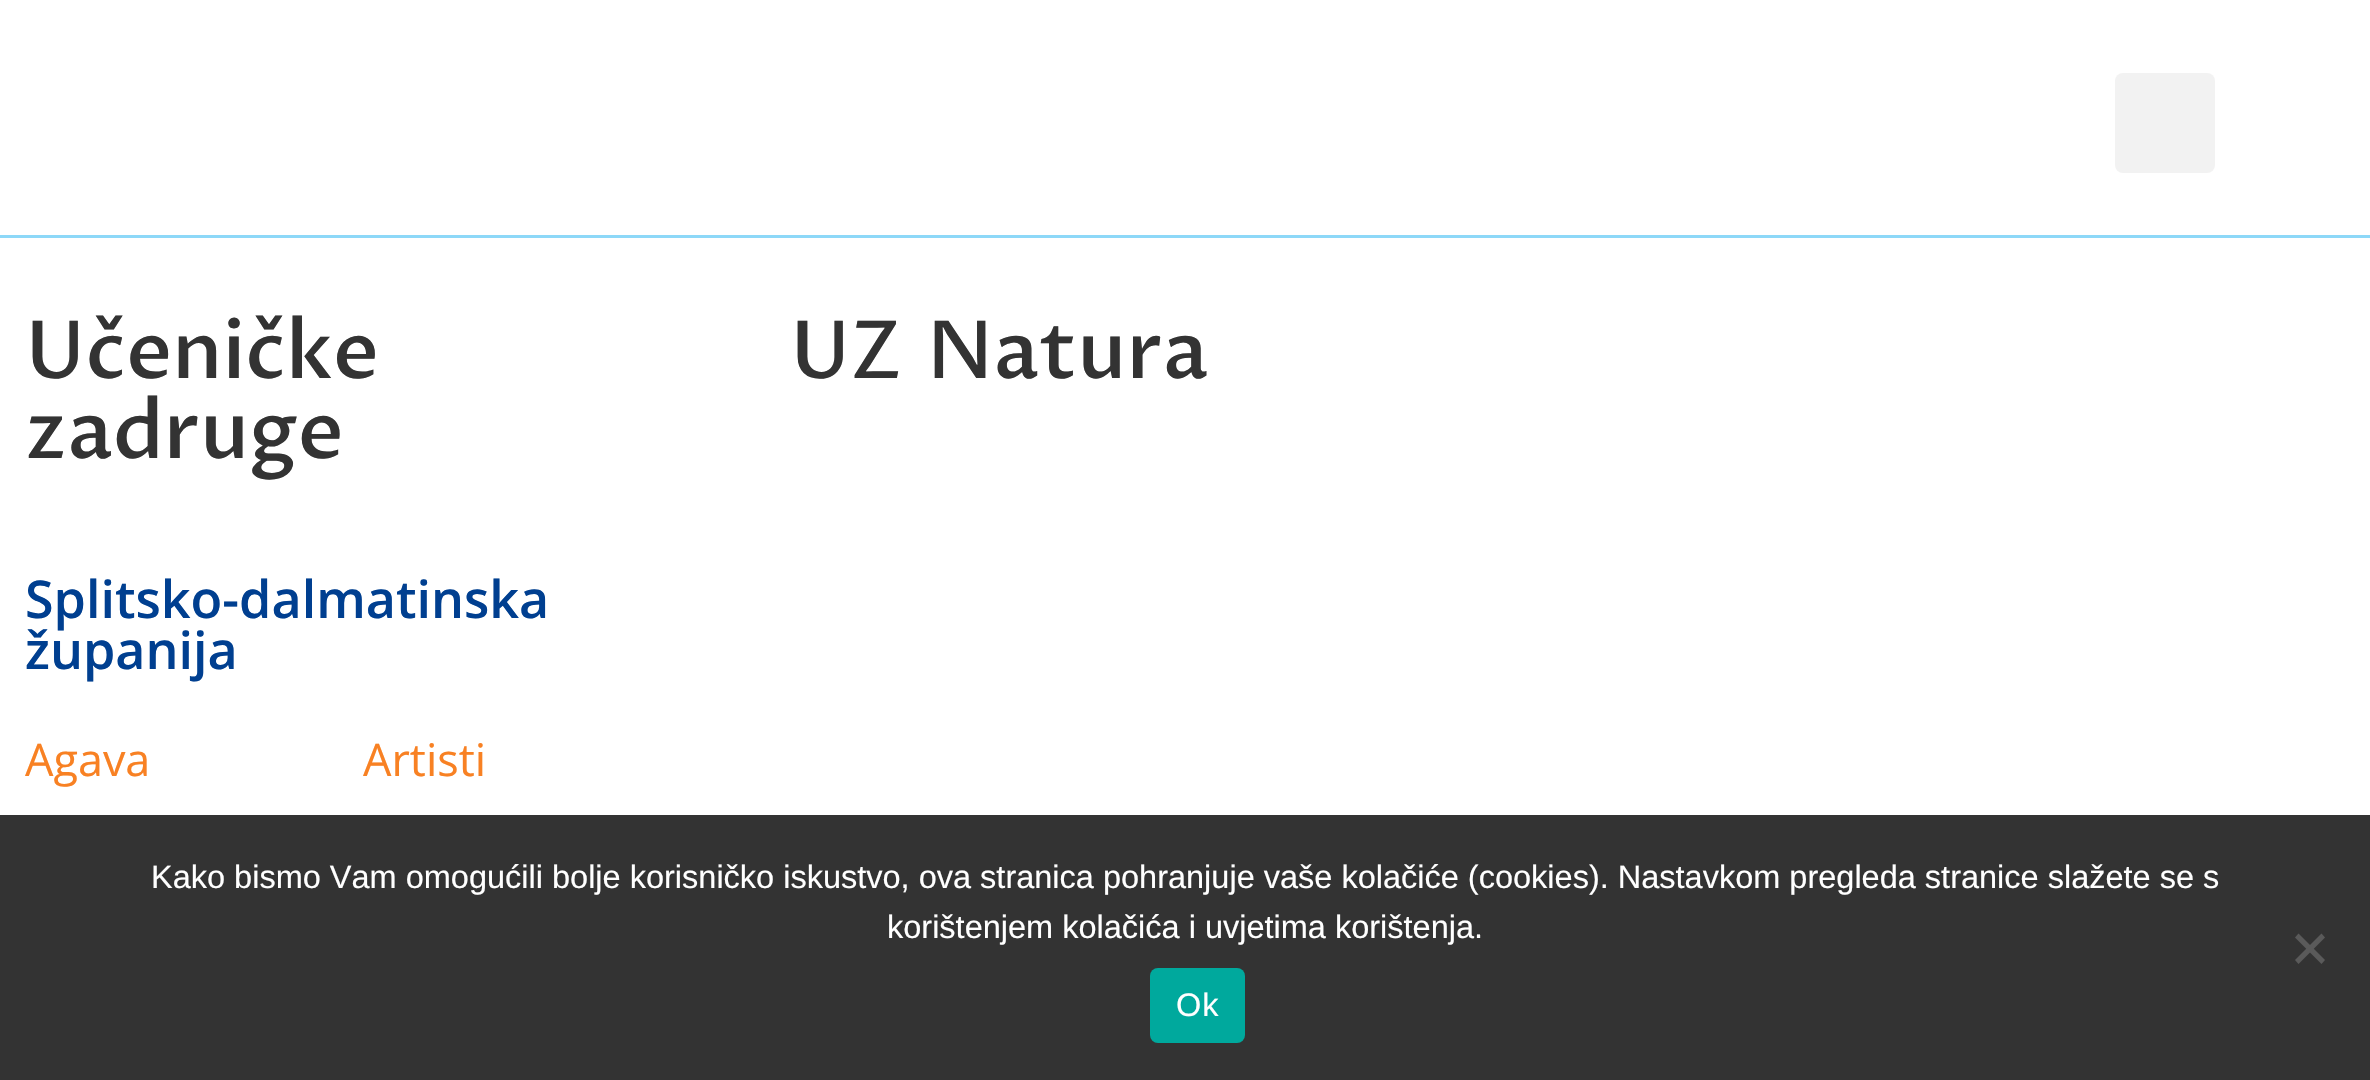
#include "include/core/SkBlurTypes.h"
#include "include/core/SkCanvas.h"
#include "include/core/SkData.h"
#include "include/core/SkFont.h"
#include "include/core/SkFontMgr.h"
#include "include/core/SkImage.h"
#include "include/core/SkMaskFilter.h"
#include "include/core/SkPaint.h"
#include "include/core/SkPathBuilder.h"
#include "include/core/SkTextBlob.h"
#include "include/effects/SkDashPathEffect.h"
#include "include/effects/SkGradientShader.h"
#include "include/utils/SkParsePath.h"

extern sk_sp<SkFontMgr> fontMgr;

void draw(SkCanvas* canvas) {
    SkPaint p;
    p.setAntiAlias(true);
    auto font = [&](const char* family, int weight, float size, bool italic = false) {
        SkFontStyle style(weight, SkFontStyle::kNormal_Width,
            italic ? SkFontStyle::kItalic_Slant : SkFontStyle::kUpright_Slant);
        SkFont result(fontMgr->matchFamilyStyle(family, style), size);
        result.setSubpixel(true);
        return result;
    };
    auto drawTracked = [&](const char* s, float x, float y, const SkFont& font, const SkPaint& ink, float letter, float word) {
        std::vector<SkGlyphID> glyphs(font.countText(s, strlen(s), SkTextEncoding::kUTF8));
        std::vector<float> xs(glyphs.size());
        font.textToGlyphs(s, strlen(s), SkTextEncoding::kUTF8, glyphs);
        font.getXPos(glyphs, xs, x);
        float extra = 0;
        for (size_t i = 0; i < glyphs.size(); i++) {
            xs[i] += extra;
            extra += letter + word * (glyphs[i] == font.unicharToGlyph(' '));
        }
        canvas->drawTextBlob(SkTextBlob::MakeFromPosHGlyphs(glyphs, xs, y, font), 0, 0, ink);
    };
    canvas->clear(0xFFFFFFFF);
    p.setColor(0xFF8DD8F8);
    canvas->drawRect(SkRect::MakeLTRB(0, 235, 2370, 238), p);
    p.setColor(0xFFF2F2F2);
    canvas->drawRoundRect(SkRect::MakeLTRB(2115, 73, 2215, 173), 8, 8, p);
    auto font1 = font("Proza Libre", 500, 80);
    p.setColor(0xFF333333);
    canvas->drawString("Učeničke", 25, 378, font1, p);
    canvas->drawString("zadruge", 25, 458, font1, p);
    auto font2 = font("Open Sans", 600, 52);
    p.setColor(0xFF003F90);
    canvas->drawString("Splitsko-dalmatinska", 25, 618, font2, p);
    canvas->drawString("županija", 25, 669, font2, p);
    auto font3 = font("Open Sans", 400, 45);
    p.setColor(0xFFF88123);
    canvas->drawString("Agava", 25, 776, font3, p);
    canvas->drawString("Artisti", 363, 776, font3, p);
    p.setColor(0xFF333333);
    canvas->drawString("UZ", 790, 378, font1, p);
    canvas->drawString("Natura", 927, 378, font1, p);
    p.setColor(0xCC000000);
    canvas->drawRect(SkRect::MakeLTRB(0, 815, 2370, 1080), p);
    auto font4 = font("Liberation Sans", 400, 32.5f);
    p.setColor(0xFFFFFFFF);
    canvas->drawString("Kako bismo Vam omogućili bolje korisničko iskustvo, ova stranica pohranjuje vaše kolačiće (cookies). Nastavkom pregleda stranice slažete se s", 151, 888, font4, p);
    canvas->drawString("korištenjem kolačića i uvjetima korištenja.", 887, 938, font4, p);
    p.setColor(0xFF5A5A5A);
    canvas->drawPath(SkPathBuilder().moveTo(2321.5f, 933.5f).lineTo(2325, 937.5f).lineTo(2298.5f, 964).lineTo(2295, 960).close().detach(), p);
    canvas->drawPath(SkPathBuilder().moveTo(2295, 937.5f).lineTo(2298.5f, 933.5f).lineTo(2325, 960).lineTo(2321.5f, 964).close().detach(), p);
    p.setColor(0xFF00A99D);
    canvas->drawRoundRect(SkRect::MakeLTRB(1150, 968, 1245, 1043), 8, 8, p);
    p.setColor(0xFFFFFFFF);
    drawTracked("Ok", 1176, 1016, font4, p, 1, 0);
}
